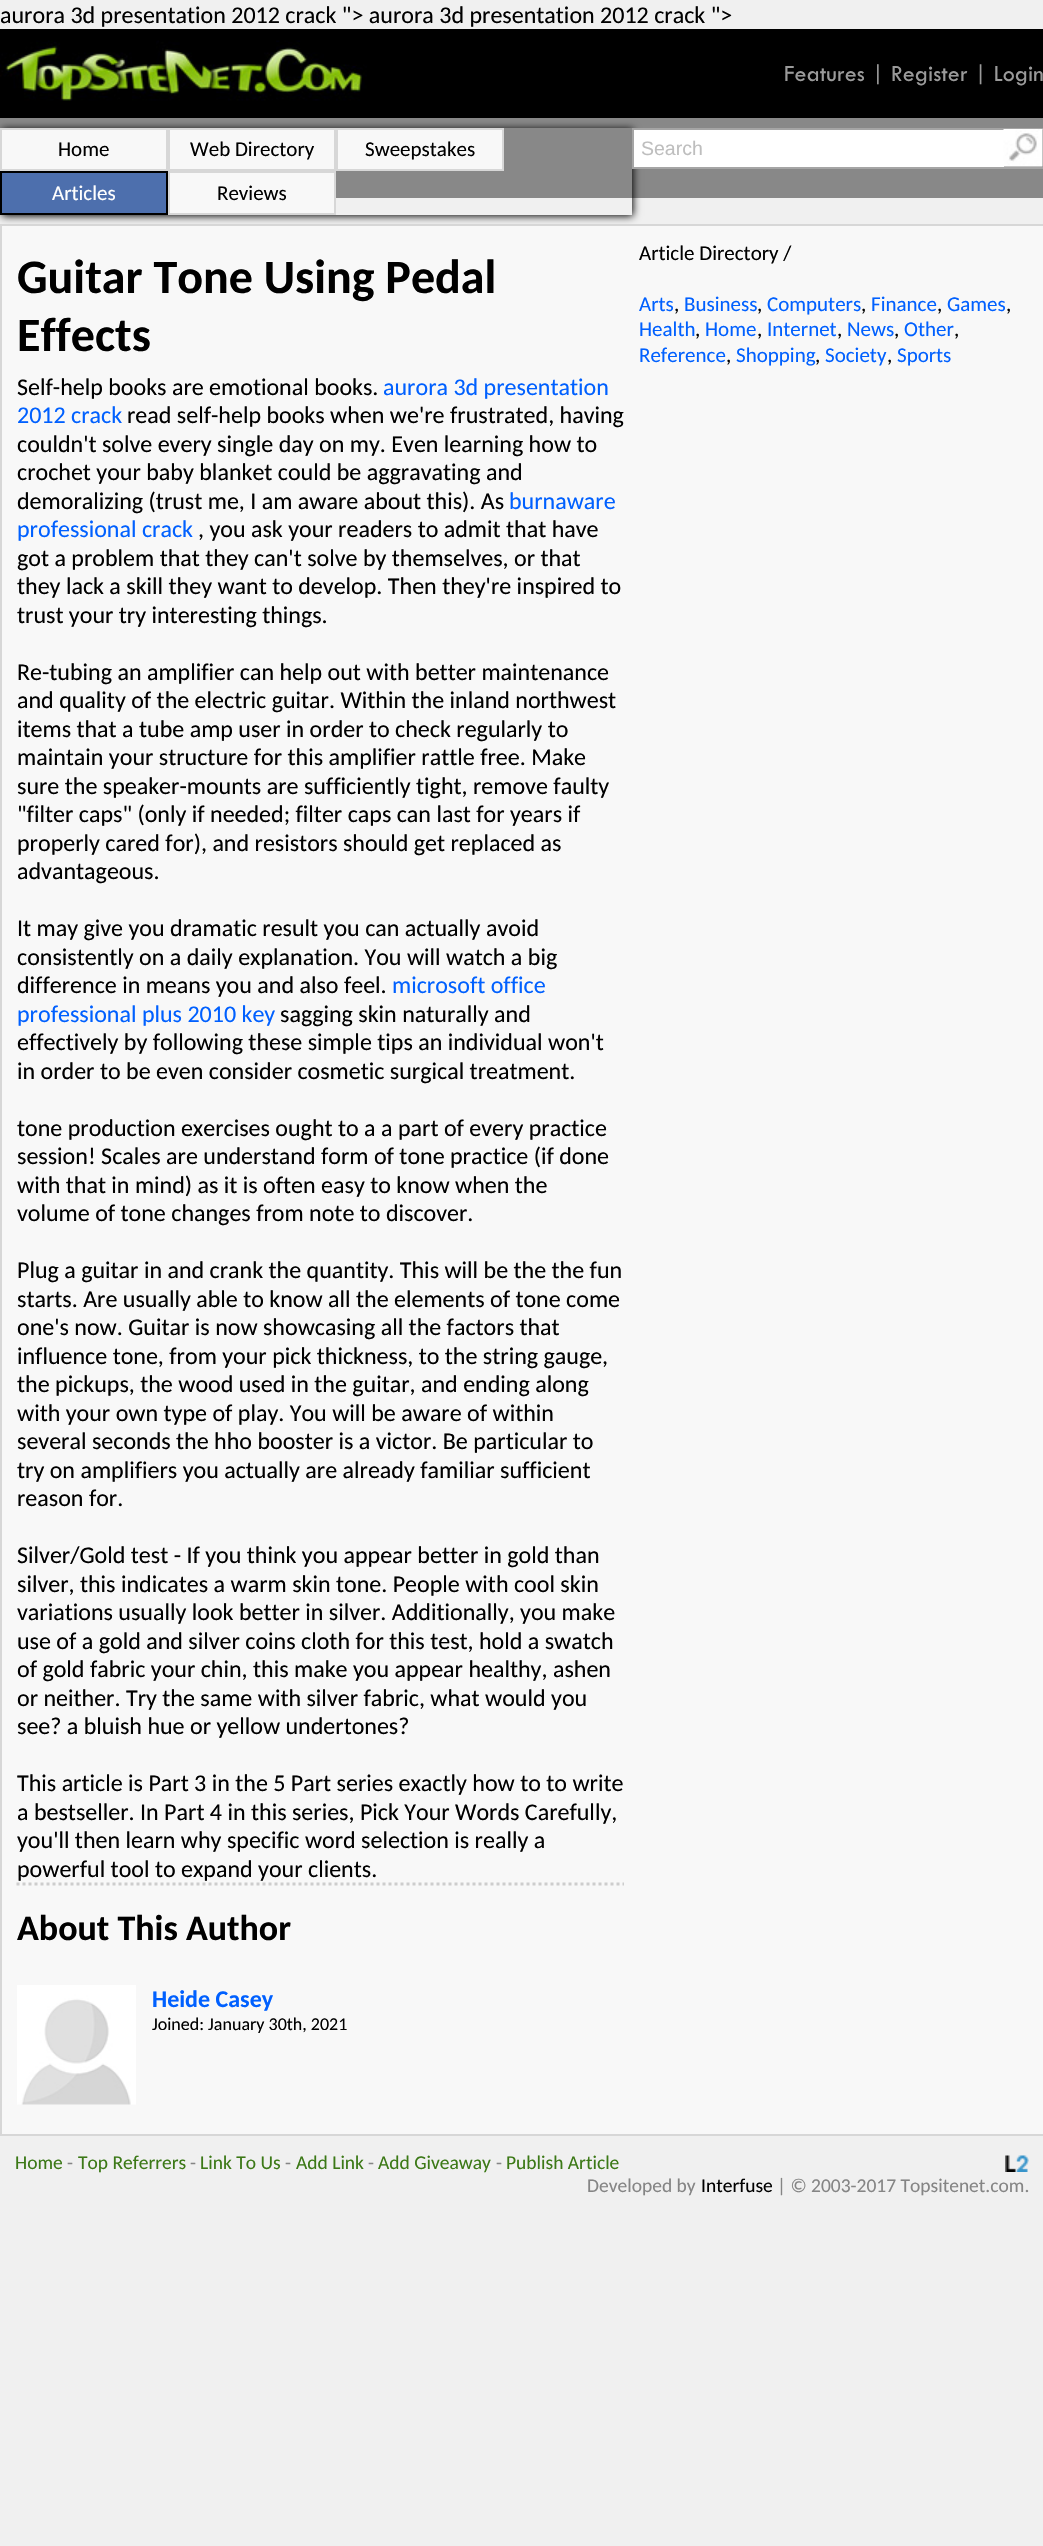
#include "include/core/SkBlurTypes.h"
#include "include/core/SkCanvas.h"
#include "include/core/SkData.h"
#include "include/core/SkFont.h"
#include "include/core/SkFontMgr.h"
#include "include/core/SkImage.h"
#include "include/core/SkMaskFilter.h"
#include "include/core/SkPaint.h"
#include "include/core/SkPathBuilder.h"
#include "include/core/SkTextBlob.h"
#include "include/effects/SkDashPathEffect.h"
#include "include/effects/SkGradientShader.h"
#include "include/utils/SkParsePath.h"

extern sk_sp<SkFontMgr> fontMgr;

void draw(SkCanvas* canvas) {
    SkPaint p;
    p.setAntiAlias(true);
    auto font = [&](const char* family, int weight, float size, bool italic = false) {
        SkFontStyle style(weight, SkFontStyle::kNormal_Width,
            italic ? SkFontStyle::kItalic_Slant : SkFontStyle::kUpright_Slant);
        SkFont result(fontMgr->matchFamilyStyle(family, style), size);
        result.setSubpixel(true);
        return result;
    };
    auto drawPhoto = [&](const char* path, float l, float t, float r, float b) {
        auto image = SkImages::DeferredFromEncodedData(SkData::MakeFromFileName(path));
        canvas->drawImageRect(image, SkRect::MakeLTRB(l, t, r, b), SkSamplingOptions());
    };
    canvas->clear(0xFFF0F0F0);
    auto font1 = font("Carlito", 400, 24);
    p.setColor(0xFF000000);
    canvas->drawString("aurora 3d presentation 2012 crack \"> aurora 3d presentation 2012 crack \">", 0, 23, font1, p);
    canvas->drawRect(SkRect::MakeLTRB(0, 29, 1043, 118), p);
    drawPhoto("media/1.png", 0, 40, 367, 101);
    auto font2 = font("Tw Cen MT", 400, 24);
    p.setColor(0xFF9A9A9A);
    canvas->drawString("Features | Register | Login", 784, 81, font2, p);
    p.setColor(0xFF888888);
    canvas->drawRect(SkRect::MakeLTRB(0, 118, 1043, 198), p);
    canvas->save();
    canvas->clipPath(SkPathBuilder(SkPathFillType::kEvenOdd).moveTo(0, 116).lineTo(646, 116).lineTo(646, 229).lineTo(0, 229).close().moveTo(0, 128).lineTo(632, 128).lineTo(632, 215).lineTo(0, 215).close().detach(), true);
    p.setColor(0xFF000000);
    p.setMaskFilter(SkMaskFilter::MakeBlur(kNormal_SkBlurStyle, 4));
    canvas->drawRect(SkRect::MakeLTRB(2, 129, 633, 216), p);
    p.setMaskFilter(nullptr);
    canvas->restore();
    p.setColor(0xFFF8F8F8);
    canvas->drawRect(SkRect::MakeLTRB(1, 129, 167, 170), p);
    p.setStyle(SkPaint::kStroke_Style);
    p.setStrokeWidth(2);
    p.setColor(0xFFD7D7D7);
    canvas->drawRect(SkRect::MakeLTRB(1, 129, 167, 170), p);
    auto font3 = font("Carlito", 400, 21);
    p.setStyle(SkPaint::kFill_Style);
    p.setColor(0xFF000000);
    canvas->drawString("Home", 58, 156, font3, p);
    p.setColor(0xFFF8F8F8);
    canvas->drawRect(SkRect::MakeLTRB(169, 129, 335, 170), p);
    p.setStyle(SkPaint::kStroke_Style);
    p.setColor(0xFFD7D7D7);
    canvas->drawRect(SkRect::MakeLTRB(169, 129, 335, 170), p);
    p.setStyle(SkPaint::kFill_Style);
    p.setColor(0xFF000000);
    canvas->drawString("Web Directory", 190, 156, font3, p);
    p.setColor(0xFFF8F8F8);
    canvas->drawRect(SkRect::MakeLTRB(337, 129, 503, 170), p);
    p.setStyle(SkPaint::kStroke_Style);
    p.setColor(0xFFD7D7D7);
    canvas->drawRect(SkRect::MakeLTRB(337, 129, 503, 170), p);
    p.setStyle(SkPaint::kFill_Style);
    p.setColor(0xFF000000);
    canvas->drawString("Sweepstakes", 365, 156, font3, p);
    p.setColor(0xFF4D6FAD);
    canvas->drawRect(SkRect::MakeLTRB(1, 172, 167, 214), p);
    p.setStyle(SkPaint::kStroke_Style);
    p.setColor(0xFF000000);
    canvas->drawRect(SkRect::MakeLTRB(1, 172, 167, 214), p);
    p.setStyle(SkPaint::kFill_Style);
    p.setColor(0xFFFFFFFF);
    canvas->drawString("Articles", 52, 200, font3, p);
    p.setColor(0xFFF8F8F8);
    canvas->drawRect(SkRect::MakeLTRB(169, 172, 335, 214), p);
    p.setStyle(SkPaint::kStroke_Style);
    p.setColor(0xFFD7D7D7);
    canvas->drawRect(SkRect::MakeLTRB(169, 172, 335, 214), p);
    p.setStyle(SkPaint::kFill_Style);
    p.setColor(0xFF000000);
    canvas->drawString("Reviews", 217, 200, font3, p);
    {
        const struct { float l, t, r, b; SkColor color; } items[] = {
            {634, 130, 1004, 167, 0xFFFFFFFF},
            {632, 128, 1043, 130, 0xFFA5A5A5},
            {632, 167, 1043, 169, 0xFFA5A5A5},
            {632, 128, 634, 168, 0xFFA5A5A5},
        };
        for (auto [l, t, r, b, color] : items) {
            p.setColor(color);
            canvas->drawRect(SkRect::MakeLTRB(l, t, r, b), p);
        }
    }
    auto font4 = font("Liberation Sans", 400, 19.5f);
    p.setColor(0xFFBEBEBE);
    canvas->drawString("Search", 641, 155, font4, p);
    drawPhoto("media/2.png", 1003, 129, 1043, 167);
    p.setColor(0xFFF8F8F8);
    canvas->drawRect(SkRect::MakeLTRB(1, 225, 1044, 2135), p);
    p.setStyle(SkPaint::kStroke_Style);
    p.setColor(0xFFD7D7D7);
    canvas->drawRect(SkRect::MakeLTRB(1, 225, 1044, 2135), p);
    auto font5 = font("Carlito", 700, 48);
    p.setStyle(SkPaint::kFill_Style);
    p.setColor(0xFF000000);
    canvas->drawString("Guitar Tone Using Pedal", 17, 293, font5, p);
    canvas->drawString("Effects", 17, 351, font5, p);
    canvas->drawString("Self-help books are emotional books.", 17, 395, font1, p);
    p.setColor(0xFF0060FF);
    canvas->drawString("aurora 3d presentation", 383, 395, font1, p);
    canvas->drawString("2012 crack", 17, 423, font1, p);
    p.setColor(0xFF000000);
    {
        const struct { const char* s; float x, y; } items[] = {
            {"read self-help books when we're frustrated, having", 127, 423},
            {"couldn't solve every single day on my. Even learning how to", 17, 452},
            {"crochet your baby blanket could be aggravating and", 17, 480},
            {"demoralizing (trust me, I am aware about this). As", 17, 509},
        };
        for (auto [s, x, y] : items) {
            canvas->drawString(s, x, y, font1, p);
        }
    }
    p.setColor(0xFF0060FF);
    canvas->drawString("burnaware", 509, 509, font1, p);
    canvas->drawString("professional crack", 17, 537, font1, p);
    p.setColor(0xFF000000);
    {
        const struct { const char* s; float x, y; } items[] = {
            {", you ask your readers to admit that have", 198, 537},
            {"got a problem that they can't solve by themselves, or that", 17, 566},
            {"they lack a skill they want to develop. Then they're inspired to", 17, 594},
            {"trust your try interesting things.", 17, 623},
            {"Re-tubing an amplifier can help out with better maintenance", 17, 680},
            {"and quality of the electric guitar. Within the inland northwest", 17, 708},
            {"items that a tube amp user in order to check regularly to", 17, 737},
            {"maintain your structure for this amplifier rattle free. Make", 17, 765},
            {"sure the speaker-mounts are sufficiently tight, remove faulty", 17, 794},
            {"\"filter caps\" (only if needed; filter caps can last for years if", 17, 822},
            {"properly cared for), and resistors should get replaced as", 17, 851},
            {"advantageous.", 17, 879},
            {"It may give you dramatic result you can actually avoid", 17, 936},
            {"consistently on a daily explanation. You will watch a big", 17, 965},
            {"difference in means you and also feel.", 17, 993},
        };
        for (auto [s, x, y] : items) {
            canvas->drawString(s, x, y, font1, p);
        }
    }
    p.setColor(0xFF0060FF);
    canvas->drawString("microsoft office", 392, 993, font1, p);
    canvas->drawString("professional plus 2010 key", 17, 1022, font1, p);
    p.setColor(0xFF000000);
    {
        const struct { const char* s; float x, y; } items[] = {
            {"sagging skin naturally and", 280, 1022},
            {"effectively by following these simple tips an individual won't", 17, 1050},
            {"in order to be even consider cosmetic surgical treatment.", 17, 1079},
            {"tone production exercises ought to a a part of every practice", 17, 1136},
            {"session! Scales are understand form of tone practice (if done", 17, 1164},
            {"with that in mind) as it is often easy to know when the", 17, 1193},
            {"volume of tone changes from note to discover.", 17, 1221},
            {"Plug a guitar in and crank the quantity. This will be the the fun", 17, 1278},
            {"starts. Are usually able to know all the elements of tone come", 17, 1307},
            {"one's now. Guitar is now showcasing all the factors that", 17, 1335},
            {"influence tone, from your pick thickness, to the string gauge,", 17, 1364},
            {"the pickups, the wood used in the guitar, and ending along", 17, 1392},
            {"with your own type of play. You will be aware of within", 17, 1421},
            {"several seconds the hho booster is a victor. Be particular to", 17, 1449},
            {"try on amplifiers you actually are already familiar sufficient", 17, 1478},
            {"reason for.", 17, 1506},
            {"Silver/Gold test - If you think you appear better in gold than", 17, 1563},
            {"silver, this indicates a warm skin tone. People with cool skin", 17, 1592},
            {"variations usually look better in silver. Additionally, you make", 17, 1620},
            {"use of a gold and silver coins cloth for this test, hold a swatch", 17, 1649},
            {"of gold fabric your chin, this make you appear healthy, ashen", 17, 1677},
            {"or neither. Try the same with silver fabric, what would you", 17, 1706},
            {"see? a bluish hue or yellow undertones?", 17, 1734},
            {"This article is Part 3 in the 5 Part series exactly how to to write", 17, 1791},
            {"a bestseller. In Part 4 in this series, Pick Your Words Carefully,", 17, 1820},
            {"you'll then learn why specific word selection is really a", 17, 1848},
            {"powerful tool to expand your clients.", 17, 1877},
        };
        for (auto [s, x, y] : items) {
            canvas->drawString(s, x, y, font1, p);
        }
    }
    p.setStyle(SkPaint::kStroke_Style);
    p.setStrokeWidth(3);
    p.setColor(0xFFCDCDCD);
    p.setPathEffect(SkDashPathEffect::Make({{3, 3}}, 0));
    canvas->drawPath(SkPathBuilder().moveTo(16.5f, 1884).lineTo(624, 1884).detach(), p);
    p.setPathEffect(nullptr);
    auto font6 = font("Carlito", 700, 36);
    p.setStyle(SkPaint::kFill_Style);
    p.setColor(0xFF000000);
    canvas->drawString("About This Author", 17, 1940, font6, p);
    drawPhoto("media/3.png", 17, 1985, 136, 2105);
    auto font7 = font("Carlito", 700, 24);
    p.setColor(0xFF0060FF);
    canvas->drawString("Heide Casey", 152, 2007, font7, p);
    auto font8 = font("Carlito", 400, 18);
    p.setColor(0xFF000000);
    canvas->drawString("Joined: January 30th, 2021", 152, 2030, font8, p);
    canvas->drawString("Article Directory /", 639, 260, font3, p);
    p.setColor(0xFF0060FF);
    canvas->drawString("Arts", 639, 311, font3, p);
    p.setColor(0xFF000000);
    canvas->drawString(",", 674, 311, font3, p);
    p.setColor(0xFF0060FF);
    canvas->drawString("Business", 684, 311, font3, p);
    p.setColor(0xFF000000);
    canvas->drawString(",", 757, 311, font3, p);
    p.setColor(0xFF0060FF);
    canvas->drawString("Computers", 767, 311, font3, p);
    p.setColor(0xFF000000);
    canvas->drawString(",", 861, 311, font3, p);
    p.setColor(0xFF0060FF);
    canvas->drawString("Finance", 871, 311, font3, p);
    p.setColor(0xFF000000);
    canvas->drawString(",", 937, 311, font3, p);
    p.setColor(0xFF0060FF);
    canvas->drawString("Games", 947, 311, font3, p);
    p.setColor(0xFF000000);
    canvas->drawString(",", 1006, 311, font3, p);
    p.setColor(0xFF0060FF);
    canvas->drawString("Health", 639, 336, font3, p);
    p.setColor(0xFF000000);
    canvas->drawString(",", 695, 336, font3, p);
    p.setColor(0xFF0060FF);
    canvas->drawString("Home", 705, 336, font3, p);
    p.setColor(0xFF000000);
    canvas->drawString(",", 757, 336, font3, p);
    p.setColor(0xFF0060FF);
    canvas->drawString("Internet", 767, 336, font3, p);
    p.setColor(0xFF000000);
    canvas->drawString(",", 837, 336, font3, p);
    p.setColor(0xFF0060FF);
    canvas->drawString("News", 847, 336, font3, p);
    p.setColor(0xFF000000);
    canvas->drawString(",", 894, 336, font3, p);
    p.setColor(0xFF0060FF);
    canvas->drawString("Other", 904, 336, font3, p);
    p.setColor(0xFF000000);
    canvas->drawString(",", 954, 336, font3, p);
    p.setColor(0xFF0060FF);
    canvas->drawString("Reference", 639, 362, font3, p);
    p.setColor(0xFF000000);
    canvas->drawString(",", 726, 362, font3, p);
    p.setColor(0xFF0060FF);
    canvas->drawString("Shopping", 736, 362, font3, p);
    p.setColor(0xFF000000);
    canvas->drawString(",", 815, 362, font3, p);
    p.setColor(0xFF0060FF);
    canvas->drawString("Society", 825, 362, font3, p);
    p.setColor(0xFF000000);
    canvas->drawString(",", 887, 362, font3, p);
    p.setColor(0xFF0060FF);
    canvas->drawString("Sports", 897, 362, font3, p);
    auto font9 = font("Carlito", 400, 19.5f);
    p.setColor(0xFF3C7917);
    canvas->drawString("Home", 15, 2169, font9, p);
    p.setColor(0xFF858585);
    canvas->drawString("-", 67, 2169, font9, p);
    p.setColor(0xFF3C7917);
    canvas->drawString("Top Referrers", 78, 2169, font9, p);
    p.setColor(0xFF858585);
    canvas->drawString("-", 190, 2169, font9, p);
    p.setColor(0xFF3C7917);
    canvas->drawString("Link To Us", 200, 2169, font9, p);
    p.setColor(0xFF858585);
    canvas->drawString("-", 285, 2169, font9, p);
    p.setColor(0xFF3C7917);
    canvas->drawString("Add Link", 296, 2169, font9, p);
    p.setColor(0xFF858585);
    canvas->drawString("-", 368, 2169, font9, p);
    p.setColor(0xFF3C7917);
    canvas->drawString("Add Giveaway", 378, 2169, font9, p);
    p.setColor(0xFF858585);
    canvas->drawString("-", 496, 2169, font9, p);
    p.setColor(0xFF3C7917);
    canvas->drawString("Publish Article", 506, 2169, font9, p);
    drawPhoto("media/4.png", 1005, 2155, 1029, 2172);
    p.setColor(0xFF858585);
    canvas->drawString("Developed by", 587, 2192, font9, p);
    p.setColor(0xFF000000);
    canvas->drawString("Interfuse", 701, 2192, font9, p);
    p.setColor(0xFF858585);
    canvas->drawString("| © 2003-2017 Topsitenet.com.", 777, 2192, font9, p);
}
